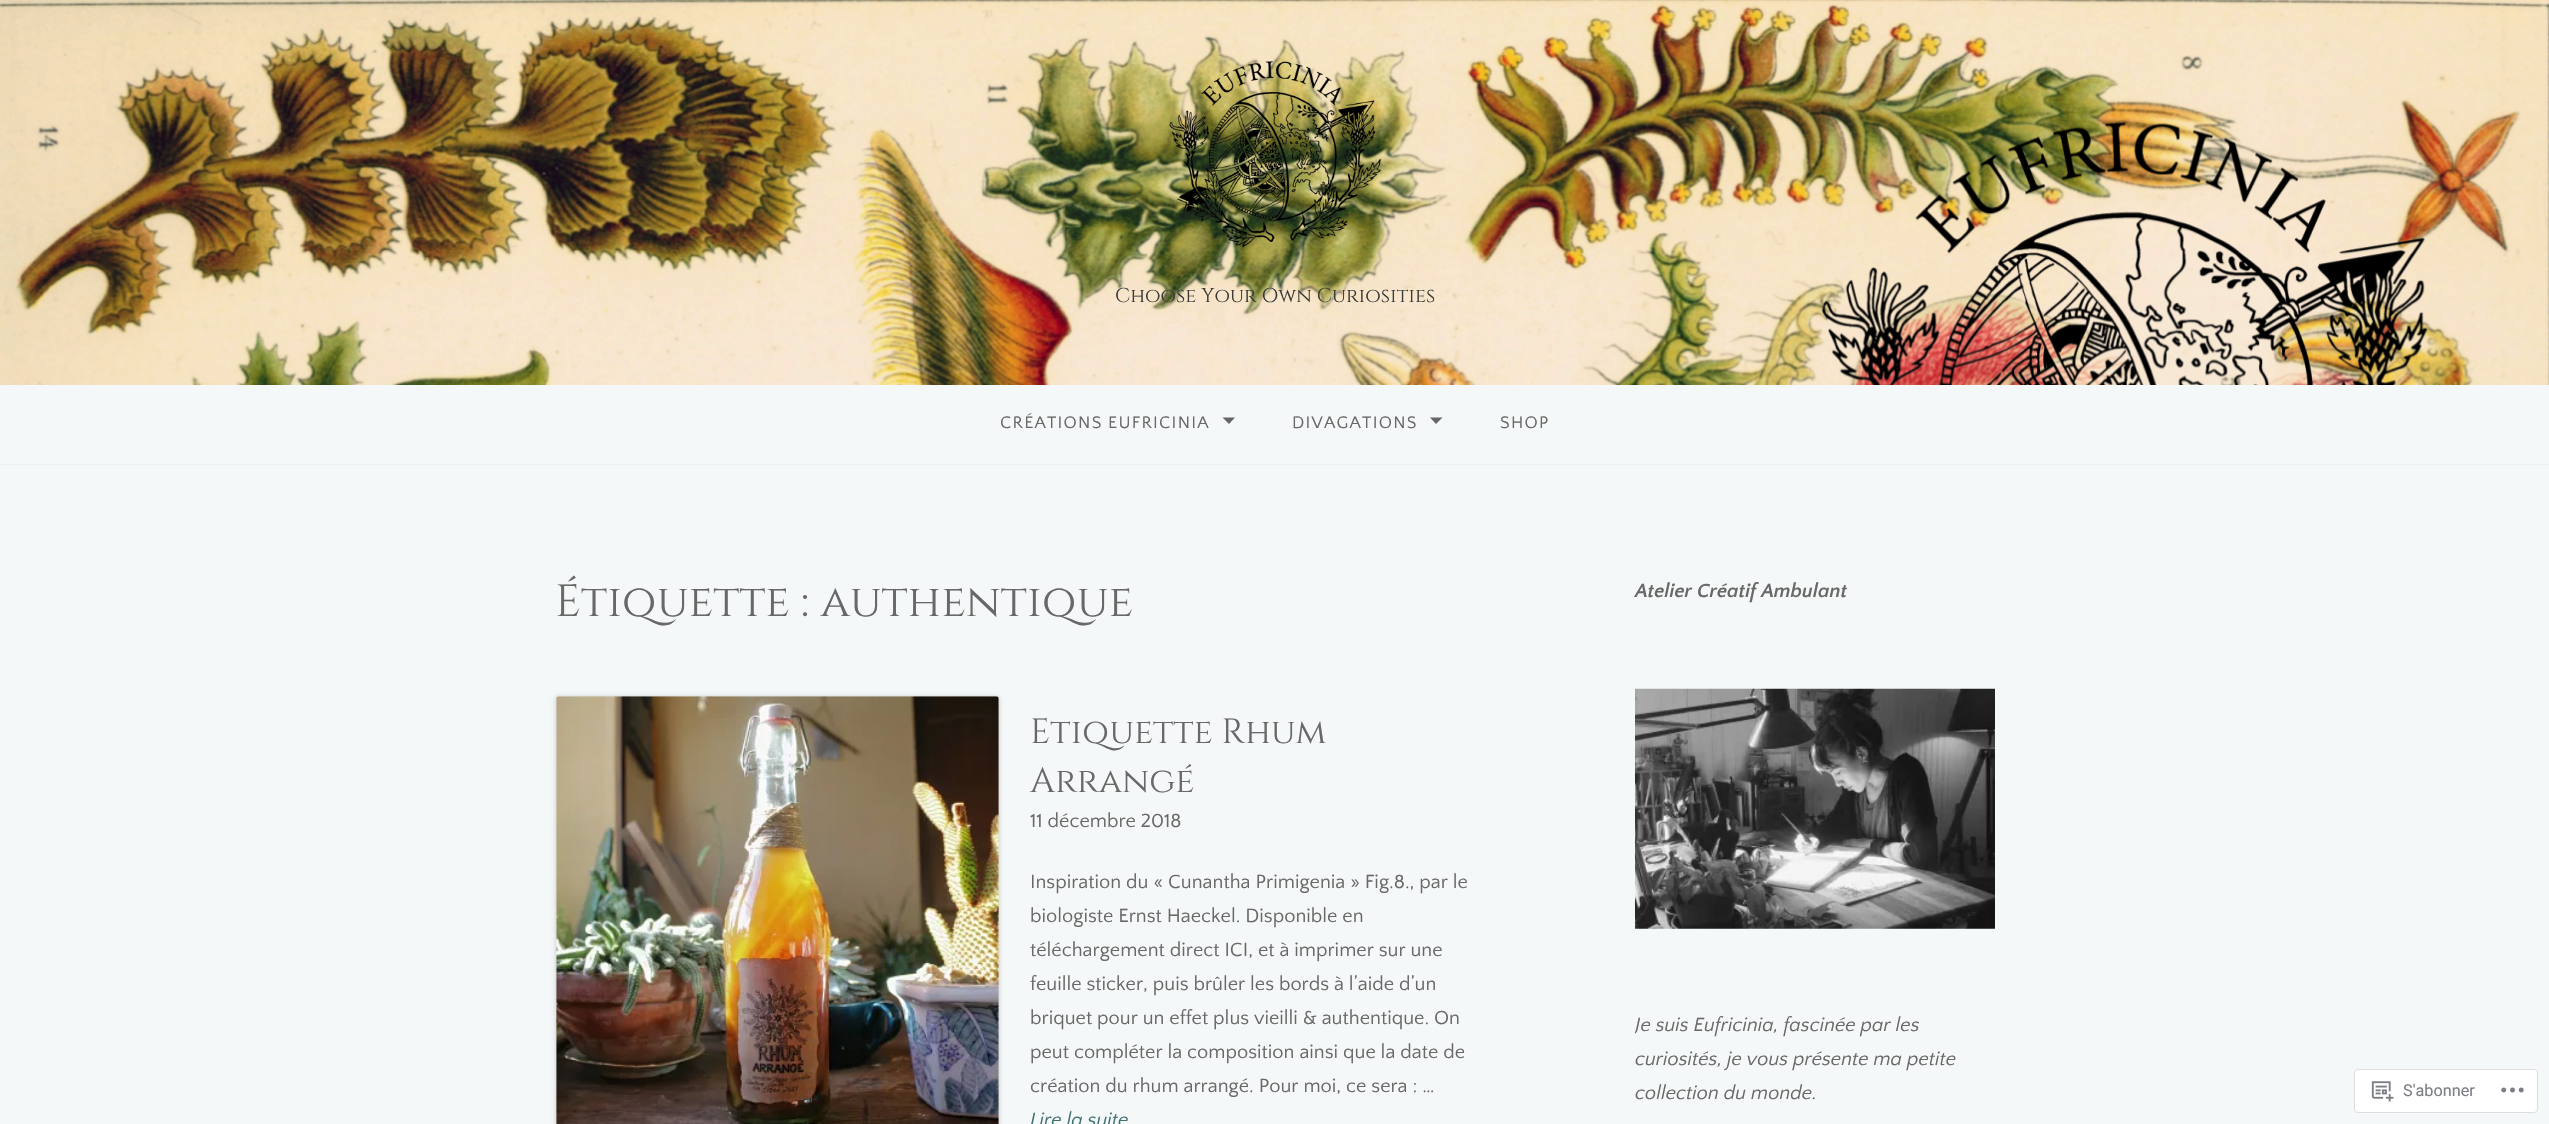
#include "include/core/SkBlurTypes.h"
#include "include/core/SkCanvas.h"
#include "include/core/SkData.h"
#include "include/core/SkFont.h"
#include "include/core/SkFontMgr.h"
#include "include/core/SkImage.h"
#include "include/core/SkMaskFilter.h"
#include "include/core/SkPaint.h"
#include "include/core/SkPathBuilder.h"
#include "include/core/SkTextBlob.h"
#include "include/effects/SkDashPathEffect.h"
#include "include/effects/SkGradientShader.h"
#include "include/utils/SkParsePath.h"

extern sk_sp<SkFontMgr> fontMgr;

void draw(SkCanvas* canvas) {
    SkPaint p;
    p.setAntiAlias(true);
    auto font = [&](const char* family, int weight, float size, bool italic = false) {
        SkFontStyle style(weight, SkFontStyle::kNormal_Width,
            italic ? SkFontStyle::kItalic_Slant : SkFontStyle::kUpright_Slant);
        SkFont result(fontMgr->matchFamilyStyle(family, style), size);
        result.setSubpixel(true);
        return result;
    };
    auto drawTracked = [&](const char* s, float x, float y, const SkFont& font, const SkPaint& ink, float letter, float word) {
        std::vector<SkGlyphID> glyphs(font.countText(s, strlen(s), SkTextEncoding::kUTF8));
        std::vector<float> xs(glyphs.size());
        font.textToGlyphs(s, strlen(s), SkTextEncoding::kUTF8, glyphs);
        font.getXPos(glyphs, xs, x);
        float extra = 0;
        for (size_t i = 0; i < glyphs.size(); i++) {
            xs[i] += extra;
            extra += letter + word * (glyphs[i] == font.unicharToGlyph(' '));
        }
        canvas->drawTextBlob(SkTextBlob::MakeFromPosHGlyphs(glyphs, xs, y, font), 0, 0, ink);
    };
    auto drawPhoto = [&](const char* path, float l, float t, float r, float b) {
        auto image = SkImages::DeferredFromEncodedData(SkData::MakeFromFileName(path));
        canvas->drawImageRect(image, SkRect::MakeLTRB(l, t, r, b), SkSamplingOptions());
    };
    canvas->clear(0xFFF5F8F8);
    drawPhoto("media/1.png", 0, 0, 2549, 385);
    drawPhoto("media/2.png", 1169, 61, 1382, 248);
    auto font1 = font("Cinzel", 400, 20);
    p.setColor(0xFF383838);
    canvas->drawString("Choose Your Own Curiosities", 1115, 302, font1, p);
    p.setColor(0xFFEEF0F0);
    canvas->drawRect(SkRect::MakeLTRB(0, 464, 2549, 465), p);
    auto font2 = font("Quattrocento Sans", 400, 17.5f);
    p.setColor(0xFF686868);
    drawTracked("CRÉATIONS EUFRICINIA", 1000, 428, font2, p, 1.25f, 0);
    p.setColor(0xFF666666);
    canvas->drawPath(SkPathBuilder().moveTo(1222.5f, 417.5f).lineTo(1235, 417.5f).lineTo(1229, 424).close().detach(), p);
    p.setColor(0xFF686868);
    drawTracked("DIVAGATIONS", 1292, 428, font2, p, 1.25f, 0);
    p.setColor(0xFF666666);
    canvas->drawPath(SkPathBuilder().moveTo(1430, 417.5f).lineTo(1442.5f, 417.5f).lineTo(1436, 424).close().detach(), p);
    p.setColor(0xFF686868);
    drawTracked("SHOP", 1500, 428, font2, p, 1.25f, 0);
    auto font3 = font("Cinzel", 400, 45);
    canvas->drawString("Étiquette : authentique", 555, 616, font3, p);
    p.setColor(0x1F000000);
    p.setMaskFilter(SkMaskFilter::MakeBlur(kNormal_SkBlurStyle, 2));
    canvas->drawRoundRect(SkRect::MakeLTRB(555, 696, 1000, 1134), 4, 4, p);
    p.setMaskFilter(nullptr);
    p.setStyle(SkPaint::kStroke_Style);
    p.setStrokeWidth(1);
    p.setColor(0x4DDDDDDD);
    canvas->drawRoundRect(SkRect::MakeLTRB(555.5f, 695.5f, 999.5f, 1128.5f), 3.5f, 3.5f, p);
    drawPhoto("media/3.png", 556, 696, 999, 1124);
    auto font4 = font("Cinzel", 400, 35);
    p.setStyle(SkPaint::kFill_Style);
    p.setColor(0xFF686868);
    canvas->drawString("Etiquette Rhum", 1030, 743, font4, p);
    canvas->drawString("Arrangé", 1030, 792, font4, p);
    auto font5 = font("Quattrocento Sans", 400, 20);
    {
        const struct { const char* s; float x, y; } items[] = {
            {"11 décembre 2018", 1030, 827},
            {"Inspiration du « Cunantha Primigenia » Fig.8., par le", 1030, 888},
            {"biologiste Ernst Haeckel. Disponible en", 1030, 922},
            {"téléchargement direct ICI, et à imprimer sur une", 1030, 956},
            {"feuille sticker, puis brûler les bords à l’aide d’un", 1030, 990},
            {"briquet pour un effet plus vieilli & authentique. On", 1030, 1024},
            {"peut compléter la composition ainsi que la date de", 1030, 1058},
            {"création du rhum arrangé. Pour moi, ce sera : …", 1030, 1092},
        };
        for (auto [s, x, y] : items) {
            canvas->drawString(s, x, y, font5, p);
        }
    }
    auto font6 = font("Quattrocento Sans", 400, 20, true);
    p.setColor(0xFF417071);
    canvas->drawString("Lire la suite", 1030, 1126, font6, p);
    auto font7 = font("Quattrocento Sans", 700, 20, true);
    p.setColor(0xFF686868);
    canvas->drawString("Atelier Créatif Ambulant", 1635, 597, font7, p);
    drawPhoto("media/4.png", 1635, 688, 1995, 929);
    canvas->save();
    canvas->clipRect(SkRect::MakeLTRB(1635, 555, 1995, 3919));
    canvas->drawString("Je suis Eufricinia, fascinée par les", 1635, 1031, font6, p);
    canvas->restore();
    canvas->drawString("curiosités, je vous présente ma petite", 1635, 1065, font6, p);
    canvas->drawString("collection du monde.", 1635, 1099, font6, p);
    p.setColor(0xFFFFFFFF);
    canvas->drawRoundRect(SkRect::MakeLTRB(2354.5f, 1069.5f, 2537.5f, 1112.5f), 3.5f, 3.5f, p);
    p.setStyle(SkPaint::kStroke_Style);
    p.setColor(0xFFDDDDDF);
    canvas->drawRoundRect(SkRect::MakeLTRB(2354.5f, 1069.5f, 2537.5f, 1112.5f), 3.5f, 3.5f, p);
    drawPhoto("media/5.png", 2371, 1081, 2394, 1102);
    auto font8 = font("Roboto", 400, 16.25f);
    p.setStyle(SkPaint::kFill_Style);
    p.setColor(0xFF7B7E84);
    canvas->drawString("S'abonner", 2403, 1096, font8, p);
    drawPhoto("media/6.png", 2501, 1087, 2524, 1093);
}
